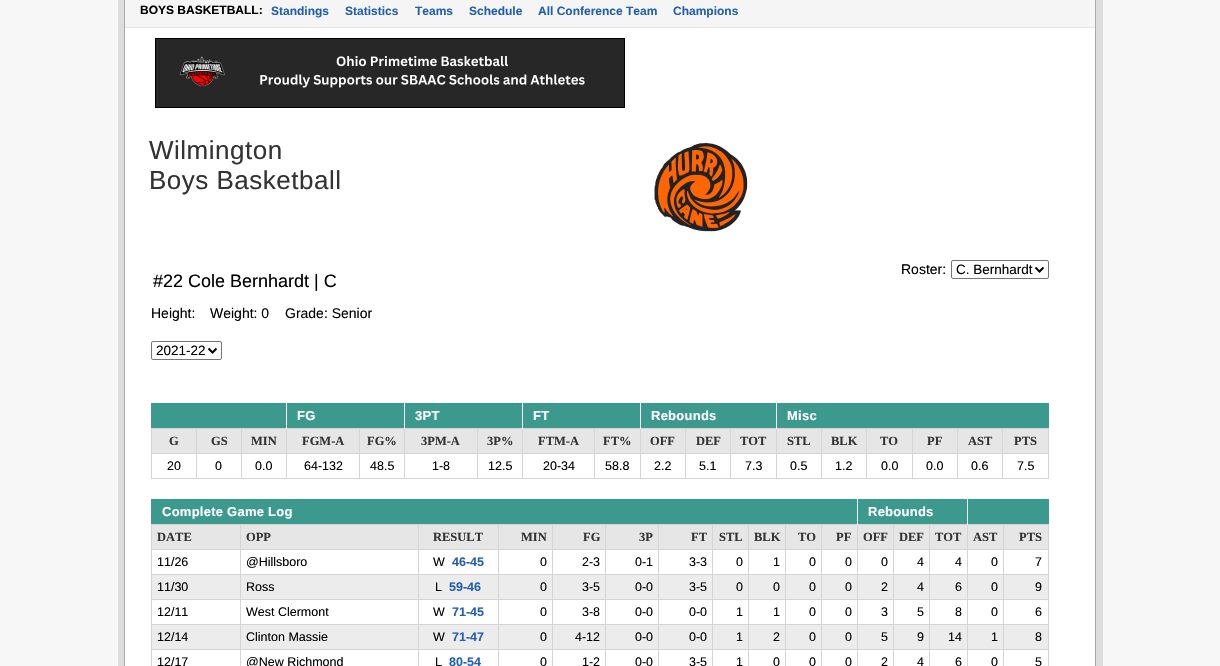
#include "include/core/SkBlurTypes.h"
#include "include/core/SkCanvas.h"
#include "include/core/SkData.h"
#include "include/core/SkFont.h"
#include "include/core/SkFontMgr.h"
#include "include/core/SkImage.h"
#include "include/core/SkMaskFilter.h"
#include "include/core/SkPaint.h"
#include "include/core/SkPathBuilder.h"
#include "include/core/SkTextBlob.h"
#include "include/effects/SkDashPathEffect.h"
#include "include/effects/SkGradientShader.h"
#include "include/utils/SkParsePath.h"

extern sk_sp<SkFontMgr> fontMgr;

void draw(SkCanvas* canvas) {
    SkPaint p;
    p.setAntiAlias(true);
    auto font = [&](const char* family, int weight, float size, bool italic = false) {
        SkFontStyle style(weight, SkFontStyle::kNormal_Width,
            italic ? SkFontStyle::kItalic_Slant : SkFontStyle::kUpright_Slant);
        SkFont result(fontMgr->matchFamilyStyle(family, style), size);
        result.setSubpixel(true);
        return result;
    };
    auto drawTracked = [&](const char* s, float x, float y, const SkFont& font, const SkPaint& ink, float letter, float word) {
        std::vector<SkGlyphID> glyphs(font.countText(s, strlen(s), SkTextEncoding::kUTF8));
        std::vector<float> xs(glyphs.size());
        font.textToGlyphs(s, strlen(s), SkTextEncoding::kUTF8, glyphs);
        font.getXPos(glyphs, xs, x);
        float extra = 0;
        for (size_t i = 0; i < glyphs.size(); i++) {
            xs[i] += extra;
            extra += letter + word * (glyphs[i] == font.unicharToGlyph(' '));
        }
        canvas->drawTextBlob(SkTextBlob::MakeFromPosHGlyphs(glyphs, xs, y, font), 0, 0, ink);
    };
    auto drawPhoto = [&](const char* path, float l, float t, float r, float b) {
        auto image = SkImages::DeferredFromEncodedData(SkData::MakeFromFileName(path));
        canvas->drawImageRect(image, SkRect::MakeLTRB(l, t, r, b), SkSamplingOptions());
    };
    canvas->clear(0xFFF7F7F7);
    {
        const struct { float l, t, r, b; SkColor color; } items[] = {
            {118, 0, 1103, 666, 0xFFDDDDDD},
            {125, 28, 1095, 666, 0xFFFFFFFF},
            {1095, 0, 1096, 666, 0xFFAAAAAA},
            {124, 0, 125, 666, 0xFFAAAAAA},
            {125, 0, 1095, 27, 0xFFF5F5F5},
            {125, 27, 1095, 28, 0xFFE5E5E5},
        };
        for (auto [l, t, r, b, color] : items) {
            p.setColor(color);
            canvas->drawRect(SkRect::MakeLTRB(l, t, r, b), p);
        }
    }
    auto font1 = font("Liberation Sans", 700, 12);
    p.setColor(0xFF000000);
    canvas->drawString("BOYS BASKETBALL:", 140, 14, font1, p);
    p.setColor(0xFF225FB2);
    {
        const struct { const char* s; float x, y; } items[] = {
            {"Standings", 271, 15},
            {"Statistics", 345, 15},
            {"Teams", 415, 15},
            {"Schedule", 469, 15},
            {"All Conference Team", 538, 15},
            {"Champions", 673, 15},
        };
        for (auto [s, x, y] : items) {
            canvas->drawString(s, x, y, font1, p);
        }
    }
    p.setStyle(SkPaint::kStroke_Style);
    p.setStrokeWidth(1);
    p.setColor(0xFF000000);
    canvas->drawRect(SkRect::MakeLTRB(155.5f, 38.5f, 624.5f, 107.5f), p);
    drawPhoto("media/1.png", 156, 39, 624, 107);
    auto font2 = font("Liberation Sans", 400, 26);
    p.setStyle(SkPaint::kFill_Style);
    p.setColor(0xFF333333);
    drawTracked("Wilmington", 149, 159, font2, p, 0.5f, 0);
    drawTracked("Boys Basketball", 149, 189, font2, p, 0.5f, 0);
    drawPhoto("media/2.png", 654, 142, 748, 232);
    auto font3 = font("Liberation Sans", 400, 14);
    p.setColor(0xFF000000);
    canvas->drawString("Roster:", 901, 274, font3, p);
    p.setStyle(SkPaint::kStroke_Style);
    p.setColor(0xFF767676);
    canvas->drawRoundRect(SkRect::MakeLTRB(951.5f, 260.5f, 1048.5f, 278.5f), 1.5f, 1.5f, p);
    p.setStrokeWidth(2);
    p.setColor(0xFF000000);
    canvas->drawPath(SkPathBuilder().moveTo(1035.5f, 267.5f).lineTo(1039.5f, 271.5f).lineTo(1043.5f, 267.5f).detach(), p);
    auto font4 = font("Liberation Sans", 400, 13.5f);
    p.setStyle(SkPaint::kFill_Style);
    canvas->drawString("C. Bernhardt", 956, 274, font4, p);
    auto font5 = font("Liberation Sans", 400, 18);
    canvas->drawString("#22 Cole Bernhardt | C", 153, 287, font5, p);
    {
        const struct { const char* s; float x, y; } items[] = {
            {"Height:", 151, 318},
            {"Weight: 0", 210, 318},
            {"Grade: Senior", 285, 318},
        };
        for (auto [s, x, y] : items) {
            canvas->drawString(s, x, y, font3, p);
        }
    }
    p.setStyle(SkPaint::kStroke_Style);
    p.setStrokeWidth(1);
    p.setColor(0xFF767676);
    canvas->drawRoundRect(SkRect::MakeLTRB(151.5f, 341.5f, 221.5f, 359.5f), 1.5f, 1.5f, p);
    p.setStrokeWidth(2);
    p.setColor(0xFF000000);
    canvas->drawPath(SkPathBuilder().moveTo(208.5f, 348.5f).lineTo(212.5f, 352.5f).lineTo(216.5f, 348.5f).detach(), p);
    p.setStyle(SkPaint::kFill_Style);
    canvas->drawString("2021-22", 156, 355, font4, p);
    {
        const struct { float l, t, r, b; SkColor color; } items[] = {
            {151, 478, 1049, 479, 0xFFD5D5D5},
            {151, 403, 1048, 428, 0xFF3C998E},
            {1048, 403, 1049, 429, 0xFF3C998E},
            {1002, 428, 1049, 429, 0xFFD5D5D5},
            {1002, 453, 1049, 454, 0xFFD5D5D5},
            {1002, 453, 1003, 479, 0xFFD5D5D5},
            {957, 453, 1003, 454, 0xFFD5D5D5},
            {1002, 428, 1003, 454, 0xFFD5D5D5},
            {957, 428, 1003, 429, 0xFFD5D5D5},
            {957, 453, 958, 479, 0xFFD5D5D5},
            {912, 453, 958, 454, 0xFFD5D5D5},
            {957, 428, 958, 454, 0xFFD5D5D5},
            {912, 428, 958, 429, 0xFFD5D5D5},
            {912, 453, 913, 479, 0xFFD5D5D5},
            {866, 453, 913, 454, 0xFFD5D5D5},
            {912, 428, 913, 454, 0xFFD5D5D5},
            {866, 428, 913, 429, 0xFFD5D5D5},
            {866, 453, 867, 479, 0xFFD5D5D5},
            {821, 453, 867, 454, 0xFFD5D5D5},
            {866, 428, 867, 454, 0xFFD5D5D5},
            {821, 428, 867, 429, 0xFFD5D5D5},
            {821, 453, 822, 479, 0xFFD5D5D5},
            {776, 453, 822, 454, 0xFFD5D5D5},
            {821, 428, 822, 454, 0xFFD5D5D5},
            {776, 428, 822, 429, 0xFFD5D5D5},
            {776, 453, 777, 479, 0xFFD5D5D5},
            {730, 453, 777, 454, 0xFFD5D5D5},
            {776, 428, 777, 454, 0xFFD5D5D5},
            {730, 428, 777, 429, 0xFFD5D5D5},
            {730, 453, 731, 479, 0xFFD5D5D5},
            {685, 453, 731, 454, 0xFFD5D5D5},
            {730, 428, 731, 454, 0xFFD5D5D5},
            {685, 428, 731, 429, 0xFFD5D5D5},
            {685, 453, 686, 479, 0xFFD5D5D5},
            {640, 453, 686, 454, 0xFFD5D5D5},
            {685, 428, 686, 454, 0xFFD5D5D5},
            {640, 428, 686, 429, 0xFFD5D5D5},
            {640, 453, 641, 479, 0xFFD5D5D5},
            {594, 453, 641, 454, 0xFFD5D5D5},
            {640, 428, 641, 454, 0xFFD5D5D5},
            {594, 428, 641, 429, 0xFFD5D5D5},
            {594, 453, 595, 479, 0xFFD5D5D5},
            {522, 453, 595, 454, 0xFFD5D5D5},
            {594, 428, 595, 454, 0xFFD5D5D5},
            {522, 428, 595, 429, 0xFFD5D5D5},
            {522, 453, 523, 479, 0xFFD5D5D5},
            {477, 453, 523, 454, 0xFFD5D5D5},
            {522, 428, 523, 454, 0xFFD5D5D5},
            {477, 428, 523, 429, 0xFFD5D5D5},
            {477, 453, 478, 479, 0xFFD5D5D5},
            {404, 453, 478, 454, 0xFFD5D5D5},
            {477, 428, 478, 454, 0xFFD5D5D5},
            {404, 428, 478, 429, 0xFFD5D5D5},
            {404, 453, 405, 479, 0xFFD5D5D5},
            {359, 453, 405, 454, 0xFFD5D5D5},
            {404, 428, 405, 454, 0xFFD5D5D5},
            {359, 428, 405, 429, 0xFFD5D5D5},
            {359, 453, 360, 479, 0xFFD5D5D5},
            {286, 453, 360, 454, 0xFFD5D5D5},
            {359, 428, 360, 454, 0xFFD5D5D5},
            {286, 428, 360, 429, 0xFFD5D5D5},
            {286, 453, 287, 479, 0xFFD5D5D5},
            {241, 453, 287, 454, 0xFFD5D5D5},
            {286, 428, 287, 454, 0xFFD5D5D5},
            {241, 428, 287, 429, 0xFFD5D5D5},
            {286, 403, 287, 429, 0xFFFFFFFF},
            {404, 403, 405, 429, 0xFFFFFFFF},
        };
        for (auto [l, t, r, b, color] : items) {
            p.setColor(color);
            canvas->drawRect(SkRect::MakeLTRB(l, t, r, b), p);
        }
    }
    auto font6 = font("Liberation Sans", 700, 13);
    drawTracked("FG", 297, 420, font6, p, 0.25f, 0);
    canvas->drawRect(SkRect::MakeLTRB(522, 403, 523, 429), p);
    drawTracked("3PT", 415, 420, font6, p, 0.25f, 0);
    canvas->drawRect(SkRect::MakeLTRB(640, 403, 641, 429), p);
    drawTracked("FT", 533, 420, font6, p, 0.25f, 0);
    canvas->drawRect(SkRect::MakeLTRB(776, 403, 777, 429), p);
    drawTracked("Rebounds", 651, 420, font6, p, 0.25f, 0);
    drawTracked("Misc", 787, 420, font6, p, 0.25f, 0);
    {
        const struct { float l, t, r, b; SkColor color; } items[] = {
            {152, 429, 196, 453, 0xFFE6E6E6},
            {241, 453, 242, 479, 0xFFD5D5D5},
            {196, 453, 242, 454, 0xFFD5D5D5},
            {241, 428, 242, 454, 0xFFD5D5D5},
            {196, 428, 242, 429, 0xFFD5D5D5},
            {196, 453, 197, 479, 0xFFD5D5D5},
            {151, 453, 197, 454, 0xFFD5D5D5},
            {196, 428, 197, 454, 0xFFD5D5D5},
            {151, 428, 197, 429, 0xFFD5D5D5},
            {151, 453, 152, 479, 0xFFD5D5D5},
            {151, 428, 152, 454, 0xFFD5D5D5},
        };
        for (auto [l, t, r, b, color] : items) {
            p.setColor(color);
            canvas->drawRect(SkRect::MakeLTRB(l, t, r, b), p);
        }
    }
    auto font7 = font("Liberation Serif", 700, 12.5f);
    p.setColor(0xFF333333);
    canvas->drawString("G", 169, 445, font7, p);
    p.setColor(0xFFE6E6E6);
    canvas->drawRect(SkRect::MakeLTRB(197, 429, 241, 453), p);
    p.setColor(0xFF333333);
    canvas->drawString("GS", 211, 445, font7, p);
    p.setColor(0xFFE6E6E6);
    canvas->drawRect(SkRect::MakeLTRB(242, 429, 286, 453), p);
    p.setColor(0xFF333333);
    canvas->drawString("MIN", 251, 445, font7, p);
    p.setColor(0xFFE6E6E6);
    canvas->drawRect(SkRect::MakeLTRB(287, 429, 359, 453), p);
    p.setColor(0xFF333333);
    canvas->drawString("FGM-A", 302, 445, font7, p);
    p.setColor(0xFFE6E6E6);
    canvas->drawRect(SkRect::MakeLTRB(360, 429, 404, 453), p);
    p.setColor(0xFF333333);
    canvas->drawString("FG%", 367, 445, font7, p);
    p.setColor(0xFFE6E6E6);
    canvas->drawRect(SkRect::MakeLTRB(405, 429, 477, 453), p);
    p.setColor(0xFF333333);
    canvas->drawString("3PM-A", 421, 445, font7, p);
    p.setColor(0xFFE6E6E6);
    canvas->drawRect(SkRect::MakeLTRB(478, 429, 522, 453), p);
    p.setColor(0xFF333333);
    canvas->drawString("3P%", 487, 445, font7, p);
    p.setColor(0xFFE6E6E6);
    canvas->drawRect(SkRect::MakeLTRB(523, 429, 594, 453), p);
    p.setColor(0xFF333333);
    canvas->drawString("FTM-A", 538, 445, font7, p);
    p.setColor(0xFFE6E6E6);
    canvas->drawRect(SkRect::MakeLTRB(595, 429, 640, 453), p);
    p.setColor(0xFF333333);
    canvas->drawString("FT%", 603, 445, font7, p);
    p.setColor(0xFFE6E6E6);
    canvas->drawRect(SkRect::MakeLTRB(641, 429, 685, 453), p);
    p.setColor(0xFF333333);
    canvas->drawString("OFF", 650, 445, font7, p);
    p.setColor(0xFFE6E6E6);
    canvas->drawRect(SkRect::MakeLTRB(686, 429, 730, 453), p);
    p.setColor(0xFF333333);
    canvas->drawString("DEF", 696, 445, font7, p);
    p.setColor(0xFFE6E6E6);
    canvas->drawRect(SkRect::MakeLTRB(731, 429, 776, 453), p);
    p.setColor(0xFF333333);
    canvas->drawString("TOT", 740, 445, font7, p);
    p.setColor(0xFFE6E6E6);
    canvas->drawRect(SkRect::MakeLTRB(777, 429, 821, 453), p);
    p.setColor(0xFF333333);
    canvas->drawString("STL", 787, 445, font7, p);
    p.setColor(0xFFE6E6E6);
    canvas->drawRect(SkRect::MakeLTRB(822, 429, 866, 453), p);
    p.setColor(0xFF333333);
    canvas->drawString("BLK", 831, 445, font7, p);
    p.setColor(0xFFE6E6E6);
    canvas->drawRect(SkRect::MakeLTRB(867, 429, 912, 453), p);
    p.setColor(0xFF333333);
    canvas->drawString("TO", 880, 445, font7, p);
    p.setColor(0xFFE6E6E6);
    canvas->drawRect(SkRect::MakeLTRB(913, 429, 957, 453), p);
    p.setColor(0xFF333333);
    canvas->drawString("PF", 927, 445, font7, p);
    p.setColor(0xFFE6E6E6);
    canvas->drawRect(SkRect::MakeLTRB(958, 429, 1002, 453), p);
    p.setColor(0xFF333333);
    canvas->drawString("AST", 968, 445, font7, p);
    {
        const struct { float l, t, r, b; SkColor color; } items[] = {
            {1003, 429, 1048, 453, 0xFFE6E6E6},
            {1048, 453, 1049, 479, 0xFFD5D5D5},
            {1048, 428, 1049, 454, 0xFFD5D5D5},
        };
        for (auto [l, t, r, b, color] : items) {
            p.setColor(color);
            canvas->drawRect(SkRect::MakeLTRB(l, t, r, b), p);
        }
    }
    p.setColor(0xFF333333);
    canvas->drawString("PTS", 1014, 445, font7, p);
    auto font8 = font("Liberation Sans", 400, 12.5f);
    p.setColor(0xFF000000);
    {
        const struct { const char* s; float x, y; } items[] = {
            {"20", 167, 470},
            {"0", 215, 470},
            {"0.0", 255, 470},
            {"64-132", 304, 470},
            {"48.5", 370, 470},
            {"1-8", 432, 470},
            {"12.5", 488, 470},
            {"20-34", 543, 470},
            {"58.8", 605, 470},
            {"2.2", 654, 470},
            {"5.1", 699, 470},
            {"7.3", 745, 470},
            {"0.5", 790, 470},
            {"1.2", 835, 470},
            {"0.0", 881, 470},
            {"0.0", 926, 470},
            {"0.6", 971, 470},
            {"7.5", 1017, 470},
        };
        for (auto [s, x, y] : items) {
            canvas->drawString(s, x, y, font8, p);
        }
    }
    {
        const struct { float l, t, r, b; SkColor color; } items[] = {
            {151, 499, 1048, 524, 0xFF3C998E},
            {1048, 499, 1049, 525, 0xFF3C998E},
            {1003, 524, 1049, 525, 0xFFD5D5D5},
            {1003, 549, 1049, 550, 0xFFD5D5D5},
            {1003, 574, 1049, 575, 0xFFD5D5D5},
            {152, 575, 1048, 599, 0xFFECECEC},
            {1003, 599, 1049, 600, 0xFFD5D5D5},
            {1003, 624, 1049, 625, 0xFFD5D5D5},
            {152, 625, 1048, 649, 0xFFECECEC},
            {1003, 649, 1049, 650, 0xFFD5D5D5},
            {1003, 649, 1004, 666, 0xFFD5D5D5},
            {967, 649, 1004, 650, 0xFFD5D5D5},
            {1003, 624, 1004, 650, 0xFFD5D5D5},
            {967, 624, 1004, 625, 0xFFD5D5D5},
            {1003, 599, 1004, 625, 0xFFD5D5D5},
            {967, 599, 1004, 600, 0xFFD5D5D5},
            {1003, 574, 1004, 600, 0xFFD5D5D5},
            {967, 574, 1004, 575, 0xFFD5D5D5},
            {1003, 549, 1004, 575, 0xFFD5D5D5},
            {967, 549, 1004, 550, 0xFFD5D5D5},
            {1003, 524, 1004, 550, 0xFFD5D5D5},
            {967, 524, 1004, 525, 0xFFD5D5D5},
            {967, 649, 968, 666, 0xFFD5D5D5},
            {929, 649, 968, 650, 0xFFD5D5D5},
            {967, 624, 968, 650, 0xFFD5D5D5},
            {929, 624, 968, 625, 0xFFD5D5D5},
            {967, 599, 968, 625, 0xFFD5D5D5},
            {929, 599, 968, 600, 0xFFD5D5D5},
            {967, 574, 968, 600, 0xFFD5D5D5},
            {929, 574, 968, 575, 0xFFD5D5D5},
            {967, 549, 968, 575, 0xFFD5D5D5},
            {929, 549, 968, 550, 0xFFD5D5D5},
            {967, 524, 968, 550, 0xFFD5D5D5},
            {929, 524, 968, 525, 0xFFD5D5D5},
            {929, 649, 930, 666, 0xFFD5D5D5},
            {893, 649, 930, 650, 0xFFD5D5D5},
            {929, 624, 930, 650, 0xFFD5D5D5},
            {893, 624, 930, 625, 0xFFD5D5D5},
            {929, 599, 930, 625, 0xFFD5D5D5},
            {893, 599, 930, 600, 0xFFD5D5D5},
            {929, 574, 930, 600, 0xFFD5D5D5},
            {893, 574, 930, 575, 0xFFD5D5D5},
            {929, 549, 930, 575, 0xFFD5D5D5},
            {893, 549, 930, 550, 0xFFD5D5D5},
            {929, 524, 930, 550, 0xFFD5D5D5},
            {893, 524, 930, 525, 0xFFD5D5D5},
            {893, 649, 894, 666, 0xFFD5D5D5},
            {857, 649, 894, 650, 0xFFD5D5D5},
            {893, 624, 894, 650, 0xFFD5D5D5},
            {857, 624, 894, 625, 0xFFD5D5D5},
            {893, 599, 894, 625, 0xFFD5D5D5},
            {857, 599, 894, 600, 0xFFD5D5D5},
            {893, 574, 894, 600, 0xFFD5D5D5},
            {857, 574, 894, 575, 0xFFD5D5D5},
            {893, 549, 894, 575, 0xFFD5D5D5},
            {857, 549, 894, 550, 0xFFD5D5D5},
            {893, 524, 894, 550, 0xFFD5D5D5},
            {857, 524, 894, 525, 0xFFD5D5D5},
            {857, 649, 858, 666, 0xFFD5D5D5},
            {821, 649, 858, 650, 0xFFD5D5D5},
            {857, 624, 858, 650, 0xFFD5D5D5},
            {821, 624, 858, 625, 0xFFD5D5D5},
            {857, 599, 858, 625, 0xFFD5D5D5},
            {821, 599, 858, 600, 0xFFD5D5D5},
            {857, 574, 858, 600, 0xFFD5D5D5},
            {821, 574, 858, 575, 0xFFD5D5D5},
            {857, 549, 858, 575, 0xFFD5D5D5},
            {821, 549, 858, 550, 0xFFD5D5D5},
            {857, 524, 858, 550, 0xFFD5D5D5},
            {821, 524, 858, 525, 0xFFD5D5D5},
            {857, 499, 858, 525, 0xFFFFFFFF},
        };
        for (auto [l, t, r, b, color] : items) {
            p.setColor(color);
            canvas->drawRect(SkRect::MakeLTRB(l, t, r, b), p);
        }
    }
    drawTracked("Complete Game Log", 162, 516, font6, p, 0.25f, 0);
    canvas->drawRect(SkRect::MakeLTRB(967, 499, 968, 525), p);
    drawTracked("Rebounds", 868, 516, font6, p, 0.25f, 0);
    {
        const struct { float l, t, r, b; SkColor color; } items[] = {
            {152, 525, 240, 549, 0xFFE6E6E6},
            {821, 649, 822, 666, 0xFFD5D5D5},
            {785, 649, 822, 650, 0xFFD5D5D5},
            {821, 624, 822, 650, 0xFFD5D5D5},
            {785, 624, 822, 625, 0xFFD5D5D5},
            {821, 599, 822, 625, 0xFFD5D5D5},
            {785, 599, 822, 600, 0xFFD5D5D5},
            {821, 574, 822, 600, 0xFFD5D5D5},
            {785, 574, 822, 575, 0xFFD5D5D5},
            {821, 549, 822, 575, 0xFFD5D5D5},
            {785, 549, 822, 550, 0xFFD5D5D5},
            {821, 524, 822, 550, 0xFFD5D5D5},
            {785, 524, 822, 525, 0xFFD5D5D5},
            {785, 649, 786, 666, 0xFFD5D5D5},
            {748, 649, 786, 650, 0xFFD5D5D5},
            {785, 624, 786, 650, 0xFFD5D5D5},
            {748, 624, 786, 625, 0xFFD5D5D5},
            {785, 599, 786, 625, 0xFFD5D5D5},
            {748, 599, 786, 600, 0xFFD5D5D5},
            {785, 574, 786, 600, 0xFFD5D5D5},
            {748, 574, 786, 575, 0xFFD5D5D5},
            {785, 549, 786, 575, 0xFFD5D5D5},
            {748, 549, 786, 550, 0xFFD5D5D5},
            {785, 524, 786, 550, 0xFFD5D5D5},
            {748, 524, 786, 525, 0xFFD5D5D5},
            {748, 649, 749, 666, 0xFFD5D5D5},
            {712, 649, 749, 650, 0xFFD5D5D5},
            {748, 624, 749, 650, 0xFFD5D5D5},
            {712, 624, 749, 625, 0xFFD5D5D5},
            {748, 599, 749, 625, 0xFFD5D5D5},
            {712, 599, 749, 600, 0xFFD5D5D5},
            {748, 574, 749, 600, 0xFFD5D5D5},
            {712, 574, 749, 575, 0xFFD5D5D5},
            {748, 549, 749, 575, 0xFFD5D5D5},
            {712, 549, 749, 550, 0xFFD5D5D5},
            {748, 524, 749, 550, 0xFFD5D5D5},
            {712, 524, 749, 525, 0xFFD5D5D5},
            {712, 649, 713, 666, 0xFFD5D5D5},
            {658, 649, 713, 650, 0xFFD5D5D5},
            {712, 624, 713, 650, 0xFFD5D5D5},
            {658, 624, 713, 625, 0xFFD5D5D5},
            {712, 599, 713, 625, 0xFFD5D5D5},
            {658, 599, 713, 600, 0xFFD5D5D5},
            {712, 574, 713, 600, 0xFFD5D5D5},
            {658, 574, 713, 575, 0xFFD5D5D5},
            {712, 549, 713, 575, 0xFFD5D5D5},
            {658, 549, 713, 550, 0xFFD5D5D5},
            {712, 524, 713, 550, 0xFFD5D5D5},
            {658, 524, 713, 525, 0xFFD5D5D5},
            {658, 649, 659, 666, 0xFFD5D5D5},
            {605, 649, 659, 650, 0xFFD5D5D5},
            {658, 624, 659, 650, 0xFFD5D5D5},
            {605, 624, 659, 625, 0xFFD5D5D5},
            {658, 599, 659, 625, 0xFFD5D5D5},
            {605, 599, 659, 600, 0xFFD5D5D5},
            {658, 574, 659, 600, 0xFFD5D5D5},
            {605, 574, 659, 575, 0xFFD5D5D5},
            {658, 549, 659, 575, 0xFFD5D5D5},
            {605, 549, 659, 550, 0xFFD5D5D5},
            {658, 524, 659, 550, 0xFFD5D5D5},
            {605, 524, 659, 525, 0xFFD5D5D5},
            {605, 649, 606, 666, 0xFFD5D5D5},
            {552, 649, 606, 650, 0xFFD5D5D5},
            {605, 624, 606, 650, 0xFFD5D5D5},
            {552, 624, 606, 625, 0xFFD5D5D5},
            {605, 599, 606, 625, 0xFFD5D5D5},
            {552, 599, 606, 600, 0xFFD5D5D5},
            {605, 574, 606, 600, 0xFFD5D5D5},
            {552, 574, 606, 575, 0xFFD5D5D5},
            {605, 549, 606, 575, 0xFFD5D5D5},
            {552, 549, 606, 550, 0xFFD5D5D5},
            {605, 524, 606, 550, 0xFFD5D5D5},
            {552, 524, 606, 525, 0xFFD5D5D5},
            {552, 649, 553, 666, 0xFFD5D5D5},
            {498, 649, 553, 650, 0xFFD5D5D5},
            {552, 624, 553, 650, 0xFFD5D5D5},
            {498, 624, 553, 625, 0xFFD5D5D5},
            {552, 599, 553, 625, 0xFFD5D5D5},
            {498, 599, 553, 600, 0xFFD5D5D5},
            {552, 574, 553, 600, 0xFFD5D5D5},
            {498, 574, 553, 575, 0xFFD5D5D5},
            {552, 549, 553, 575, 0xFFD5D5D5},
            {498, 549, 553, 550, 0xFFD5D5D5},
            {552, 524, 553, 550, 0xFFD5D5D5},
            {498, 524, 553, 525, 0xFFD5D5D5},
            {498, 649, 499, 666, 0xFFD5D5D5},
            {418, 649, 499, 650, 0xFFD5D5D5},
            {498, 624, 499, 650, 0xFFD5D5D5},
            {418, 624, 499, 625, 0xFFD5D5D5},
            {498, 599, 499, 625, 0xFFD5D5D5},
            {418, 599, 499, 600, 0xFFD5D5D5},
            {498, 574, 499, 600, 0xFFD5D5D5},
            {418, 574, 499, 575, 0xFFD5D5D5},
            {498, 549, 499, 575, 0xFFD5D5D5},
            {418, 549, 499, 550, 0xFFD5D5D5},
            {498, 524, 499, 550, 0xFFD5D5D5},
            {418, 524, 499, 525, 0xFFD5D5D5},
            {418, 649, 419, 666, 0xFFD5D5D5},
            {240, 649, 419, 650, 0xFFD5D5D5},
            {418, 624, 419, 650, 0xFFD5D5D5},
            {240, 624, 419, 625, 0xFFD5D5D5},
            {418, 599, 419, 625, 0xFFD5D5D5},
            {240, 599, 419, 600, 0xFFD5D5D5},
            {418, 574, 419, 600, 0xFFD5D5D5},
            {240, 574, 419, 575, 0xFFD5D5D5},
            {418, 549, 419, 575, 0xFFD5D5D5},
            {240, 549, 419, 550, 0xFFD5D5D5},
            {418, 524, 419, 550, 0xFFD5D5D5},
            {240, 524, 419, 525, 0xFFD5D5D5},
            {240, 649, 241, 666, 0xFFD5D5D5},
            {151, 649, 241, 650, 0xFFD5D5D5},
            {240, 624, 241, 650, 0xFFD5D5D5},
            {151, 624, 241, 625, 0xFFD5D5D5},
            {240, 599, 241, 625, 0xFFD5D5D5},
            {151, 599, 241, 600, 0xFFD5D5D5},
            {240, 574, 241, 600, 0xFFD5D5D5},
            {151, 574, 241, 575, 0xFFD5D5D5},
            {240, 549, 241, 575, 0xFFD5D5D5},
            {151, 549, 241, 550, 0xFFD5D5D5},
            {240, 524, 241, 550, 0xFFD5D5D5},
            {151, 524, 241, 525, 0xFFD5D5D5},
            {151, 649, 152, 666, 0xFFD5D5D5},
            {151, 624, 152, 650, 0xFFD5D5D5},
            {151, 599, 152, 625, 0xFFD5D5D5},
            {151, 574, 152, 600, 0xFFD5D5D5},
            {151, 549, 152, 575, 0xFFD5D5D5},
            {151, 524, 152, 550, 0xFFD5D5D5},
        };
        for (auto [l, t, r, b, color] : items) {
            p.setColor(color);
            canvas->drawRect(SkRect::MakeLTRB(l, t, r, b), p);
        }
    }
    p.setColor(0xFF333333);
    canvas->drawString("DATE", 157, 541, font7, p);
    p.setColor(0xFFE6E6E6);
    canvas->drawRect(SkRect::MakeLTRB(241, 525, 418, 549), p);
    p.setColor(0xFF333333);
    canvas->drawString("OPP", 246, 541, font7, p);
    p.setColor(0xFFE6E6E6);
    canvas->drawRect(SkRect::MakeLTRB(419, 525, 498, 549), p);
    p.setColor(0xFF333333);
    canvas->drawString("RESULT", 433, 541, font7, p);
    p.setColor(0xFFE6E6E6);
    canvas->drawRect(SkRect::MakeLTRB(499, 525, 552, 549), p);
    p.setColor(0xFF333333);
    canvas->drawString("MIN", 521, 541, font7, p);
    p.setColor(0xFFE6E6E6);
    canvas->drawRect(SkRect::MakeLTRB(553, 525, 605, 549), p);
    p.setColor(0xFF333333);
    canvas->drawString("FG", 583, 541, font7, p);
    p.setColor(0xFFE6E6E6);
    canvas->drawRect(SkRect::MakeLTRB(606, 525, 658, 549), p);
    p.setColor(0xFF333333);
    canvas->drawString("3P", 639, 541, font7, p);
    p.setColor(0xFFE6E6E6);
    canvas->drawRect(SkRect::MakeLTRB(659, 525, 712, 549), p);
    p.setColor(0xFF333333);
    canvas->drawString("FT", 691, 541, font7, p);
    p.setColor(0xFFE6E6E6);
    canvas->drawRect(SkRect::MakeLTRB(713, 525, 748, 549), p);
    p.setColor(0xFF333333);
    canvas->drawString("STL", 719, 541, font7, p);
    p.setColor(0xFFE6E6E6);
    canvas->drawRect(SkRect::MakeLTRB(749, 525, 785, 549), p);
    p.setColor(0xFF333333);
    canvas->drawString("BLK", 754, 541, font7, p);
    p.setColor(0xFFE6E6E6);
    canvas->drawRect(SkRect::MakeLTRB(786, 525, 821, 549), p);
    p.setColor(0xFF333333);
    canvas->drawString("TO", 798, 541, font7, p);
    p.setColor(0xFFE6E6E6);
    canvas->drawRect(SkRect::MakeLTRB(822, 525, 857, 549), p);
    p.setColor(0xFF333333);
    canvas->drawString("PF", 836, 541, font7, p);
    p.setColor(0xFFE6E6E6);
    canvas->drawRect(SkRect::MakeLTRB(858, 525, 893, 549), p);
    p.setColor(0xFF333333);
    canvas->drawString("OFF", 863, 541, font7, p);
    p.setColor(0xFFE6E6E6);
    canvas->drawRect(SkRect::MakeLTRB(894, 525, 929, 549), p);
    p.setColor(0xFF333333);
    canvas->drawString("DEF", 899, 541, font7, p);
    p.setColor(0xFFE6E6E6);
    canvas->drawRect(SkRect::MakeLTRB(930, 525, 967, 549), p);
    p.setColor(0xFF333333);
    canvas->drawString("TOT", 935, 541, font7, p);
    p.setColor(0xFFE6E6E6);
    canvas->drawRect(SkRect::MakeLTRB(968, 525, 1003, 549), p);
    p.setColor(0xFF333333);
    canvas->drawString("AST", 973, 541, font7, p);
    {
        const struct { float l, t, r, b; SkColor color; } items[] = {
            {1004, 525, 1048, 549, 0xFFE6E6E6},
            {1048, 649, 1049, 666, 0xFFD5D5D5},
            {1048, 624, 1049, 650, 0xFFD5D5D5},
            {1048, 599, 1049, 625, 0xFFD5D5D5},
            {1048, 574, 1049, 600, 0xFFD5D5D5},
            {1048, 549, 1049, 575, 0xFFD5D5D5},
            {1048, 524, 1049, 550, 0xFFD5D5D5},
        };
        for (auto [l, t, r, b, color] : items) {
            p.setColor(color);
            canvas->drawRect(SkRect::MakeLTRB(l, t, r, b), p);
        }
    }
    p.setColor(0xFF333333);
    canvas->drawString("PTS", 1019, 541, font7, p);
    p.setColor(0xFF000000);
    {
        const struct { const char* s; float x, y; } items[] = {
            {"11/26", 157, 566},
            {"@Hillsboro", 246, 566},
            {"W", 433, 566},
        };
        for (auto [s, x, y] : items) {
            canvas->drawString(s, x, y, font8, p);
        }
    }
    auto font9 = font("Liberation Sans", 700, 12.5f);
    p.setColor(0xFF225FB2);
    canvas->drawString("46-45", 452, 566, font9, p);
    p.setColor(0xFF000000);
    {
        const struct { const char* s; float x, y; } items[] = {
            {"0", 540, 566},
            {"2-3", 582, 566},
            {"0-1", 635, 566},
            {"3-3", 689, 566},
            {"0", 736, 566},
            {"1", 773, 566},
            {"0", 809, 566},
            {"0", 845, 566},
            {"0", 881, 566},
            {"4", 917, 566},
            {"4", 955, 566},
            {"0", 991, 566},
            {"7", 1035, 566},
            {"11/30", 157, 591},
            {"Ross", 246, 591},
            {"L", 435, 591},
        };
        for (auto [s, x, y] : items) {
            canvas->drawString(s, x, y, font8, p);
        }
    }
    p.setColor(0xFF225FB2);
    canvas->drawString("59-46", 449, 591, font9, p);
    p.setColor(0xFF000000);
    {
        const struct { const char* s; float x, y; } items[] = {
            {"0", 540, 591},
            {"3-5", 582, 591},
            {"0-0", 635, 591},
            {"3-5", 689, 591},
            {"0", 736, 591},
            {"0", 773, 591},
            {"0", 809, 591},
            {"0", 845, 591},
            {"2", 881, 591},
            {"4", 917, 591},
            {"6", 955, 591},
            {"0", 991, 591},
            {"9", 1035, 591},
            {"12/11", 157, 616},
            {"West Clermont", 246, 616},
            {"W", 433, 616},
        };
        for (auto [s, x, y] : items) {
            canvas->drawString(s, x, y, font8, p);
        }
    }
    p.setColor(0xFF225FB2);
    canvas->drawString("71-45", 452, 616, font9, p);
    p.setColor(0xFF000000);
    {
        const struct { const char* s; float x, y; } items[] = {
            {"0", 540, 616},
            {"3-8", 582, 616},
            {"0-0", 635, 616},
            {"0-0", 689, 616},
            {"1", 736, 616},
            {"1", 773, 616},
            {"0", 809, 616},
            {"0", 845, 616},
            {"3", 881, 616},
            {"5", 917, 616},
            {"8", 955, 616},
            {"0", 991, 616},
            {"6", 1035, 616},
            {"12/14", 157, 641},
            {"Clinton Massie", 246, 641},
            {"W", 433, 641},
        };
        for (auto [s, x, y] : items) {
            canvas->drawString(s, x, y, font8, p);
        }
    }
    p.setColor(0xFF225FB2);
    canvas->drawString("71-47", 452, 641, font9, p);
    p.setColor(0xFF000000);
    {
        const struct { const char* s; float x, y; } items[] = {
            {"0", 540, 641},
            {"4-12", 575, 641},
            {"0-0", 635, 641},
            {"0-0", 689, 641},
            {"1", 736, 641},
            {"2", 773, 641},
            {"0", 809, 641},
            {"0", 845, 641},
            {"5", 881, 641},
            {"9", 917, 641},
            {"14", 948, 641},
            {"1", 991, 641},
            {"8", 1035, 641},
            {"12/17", 157, 666},
            {"@New Richmond", 246, 666},
            {"L", 435, 666},
        };
        for (auto [s, x, y] : items) {
            canvas->drawString(s, x, y, font8, p);
        }
    }
    p.setColor(0xFF225FB2);
    canvas->drawString("80-54", 449, 666, font9, p);
    p.setColor(0xFF000000);
    {
        const struct { const char* s; float x, y; } items[] = {
            {"0", 540, 666},
            {"1-2", 582, 666},
            {"0-0", 635, 666},
            {"3-5", 689, 666},
            {"1", 736, 666},
            {"0", 773, 666},
            {"0", 809, 666},
            {"0", 845, 666},
            {"2", 881, 666},
            {"4", 917, 666},
            {"6", 955, 666},
            {"0", 991, 666},
            {"5", 1035, 666},
        };
        for (auto [s, x, y] : items) {
            canvas->drawString(s, x, y, font8, p);
        }
    }
}
